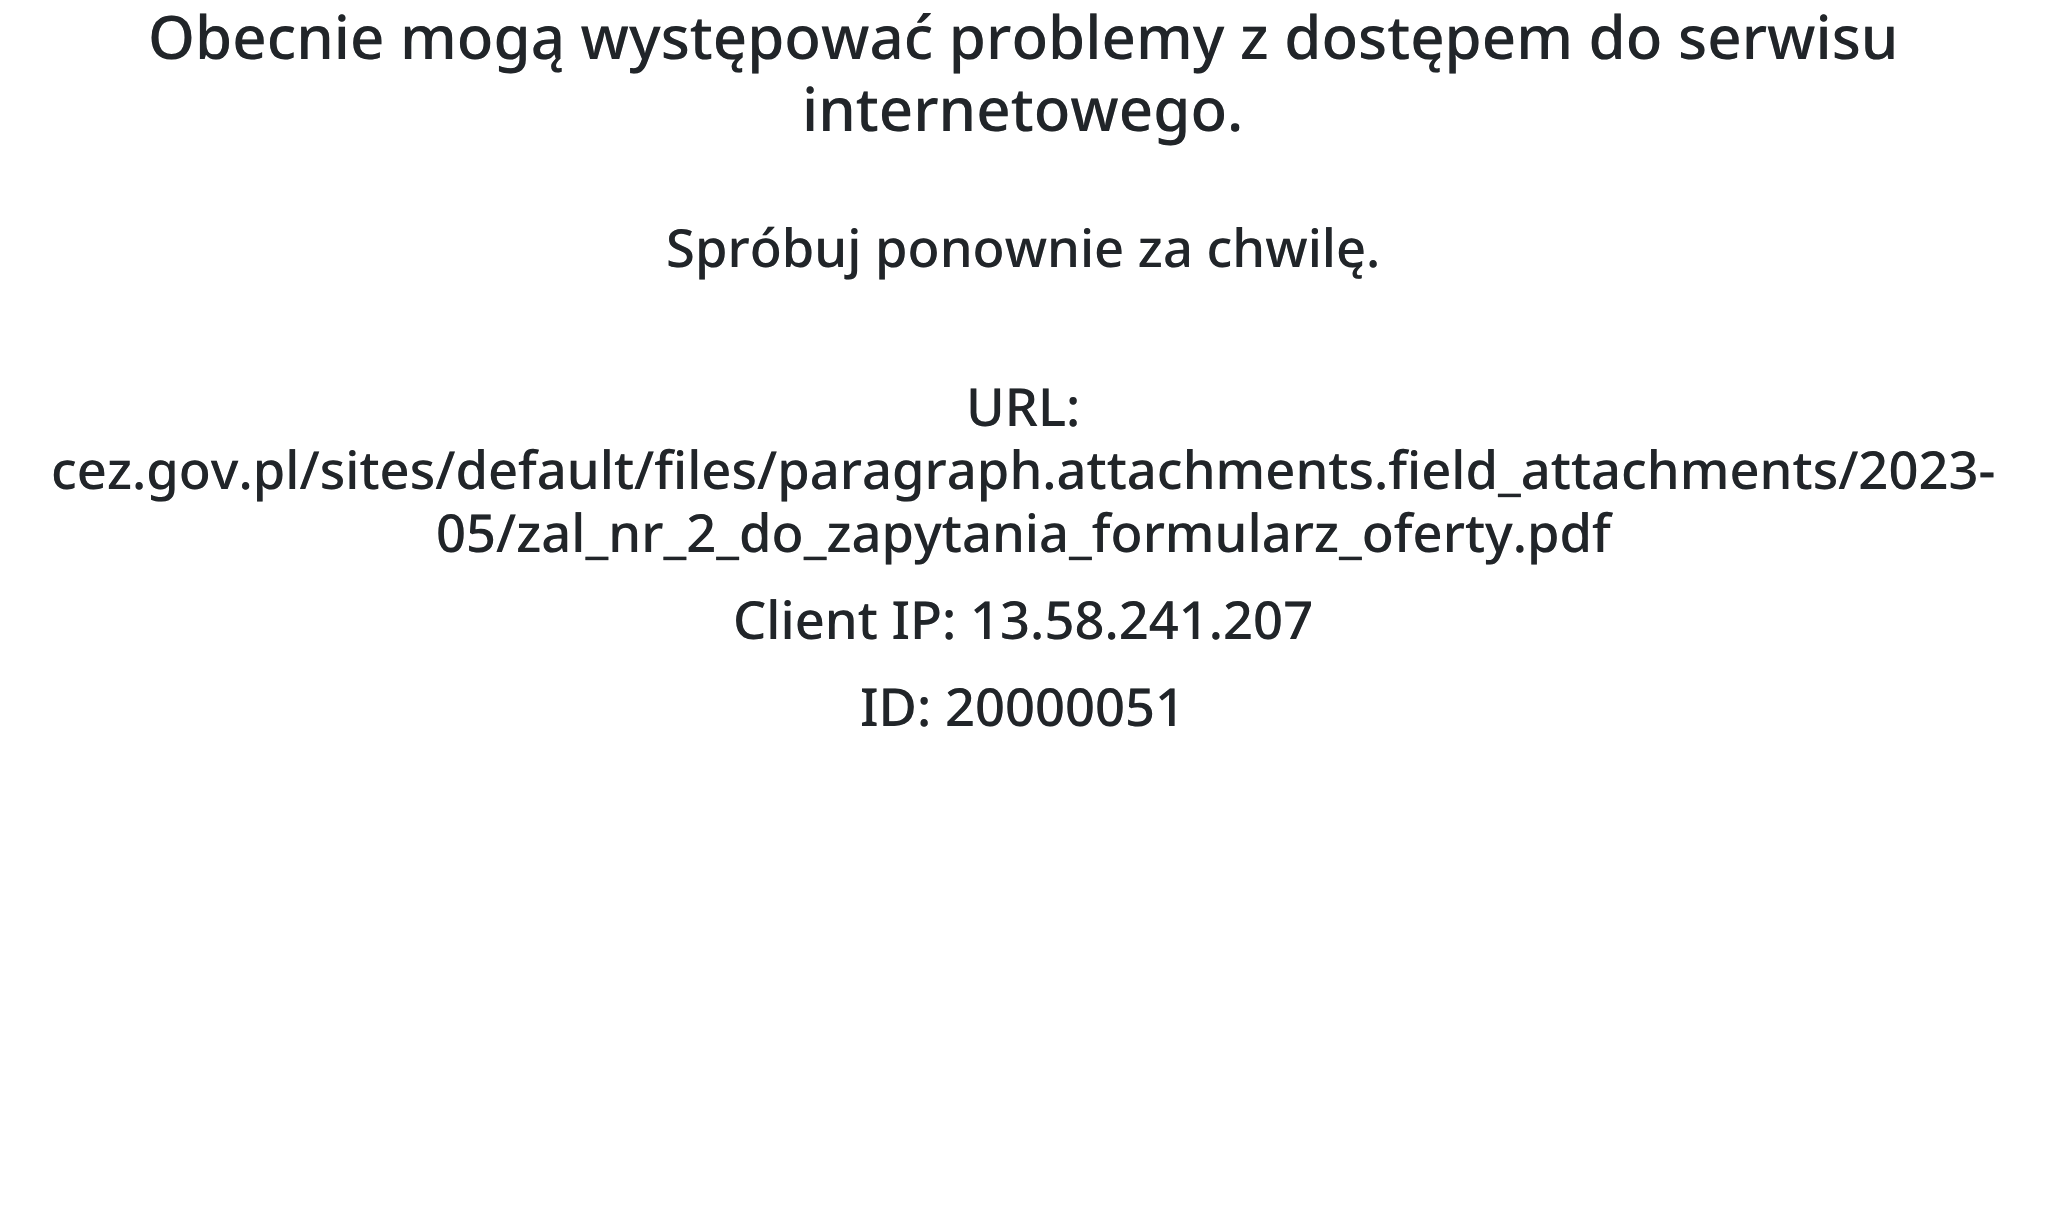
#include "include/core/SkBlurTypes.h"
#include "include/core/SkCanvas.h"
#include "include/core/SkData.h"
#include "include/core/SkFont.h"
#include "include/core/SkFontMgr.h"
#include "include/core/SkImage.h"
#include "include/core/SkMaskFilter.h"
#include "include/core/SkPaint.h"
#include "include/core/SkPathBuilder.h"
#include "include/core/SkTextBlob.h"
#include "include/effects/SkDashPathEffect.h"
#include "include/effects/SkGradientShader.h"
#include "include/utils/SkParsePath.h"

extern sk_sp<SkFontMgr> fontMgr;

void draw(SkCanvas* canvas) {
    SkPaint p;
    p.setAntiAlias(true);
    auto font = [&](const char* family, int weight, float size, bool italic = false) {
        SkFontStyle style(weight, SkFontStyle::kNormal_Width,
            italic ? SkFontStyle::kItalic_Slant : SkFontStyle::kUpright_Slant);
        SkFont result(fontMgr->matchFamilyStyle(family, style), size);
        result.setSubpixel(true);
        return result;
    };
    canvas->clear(0xFFFFFFFF);
    auto font1 = font("Noto Sans", 500, 60);
    p.setColor(0xFF212529);
    canvas->drawString("Obecnie mogą występować problemy z dostępem do serwisu", 148, 59, font1, p);
    canvas->drawString("internetowego.", 802, 131, font1, p);
    auto font2 = font("Noto Sans", 500, 52.5f);
    {
        const struct { const char* s; float x, y; } items[] = {
            {"Spróbuj ponownie za chwilę.", 666, 267},
            {"URL:", 966, 426},
            {"cez.gov.pl/sites/default/files/paragraph.attachments.field_attachments/2023-", 51, 489},
            {"05/zal_nr_2_do_zapytania_formularz_oferty.pdf", 436, 552},
            {"Client IP: 13.58.241.207", 733, 639},
            {"ID: 20000051", 860, 726},
        };
        for (auto [s, x, y] : items) {
            canvas->drawString(s, x, y, font2, p);
        }
    }
}
